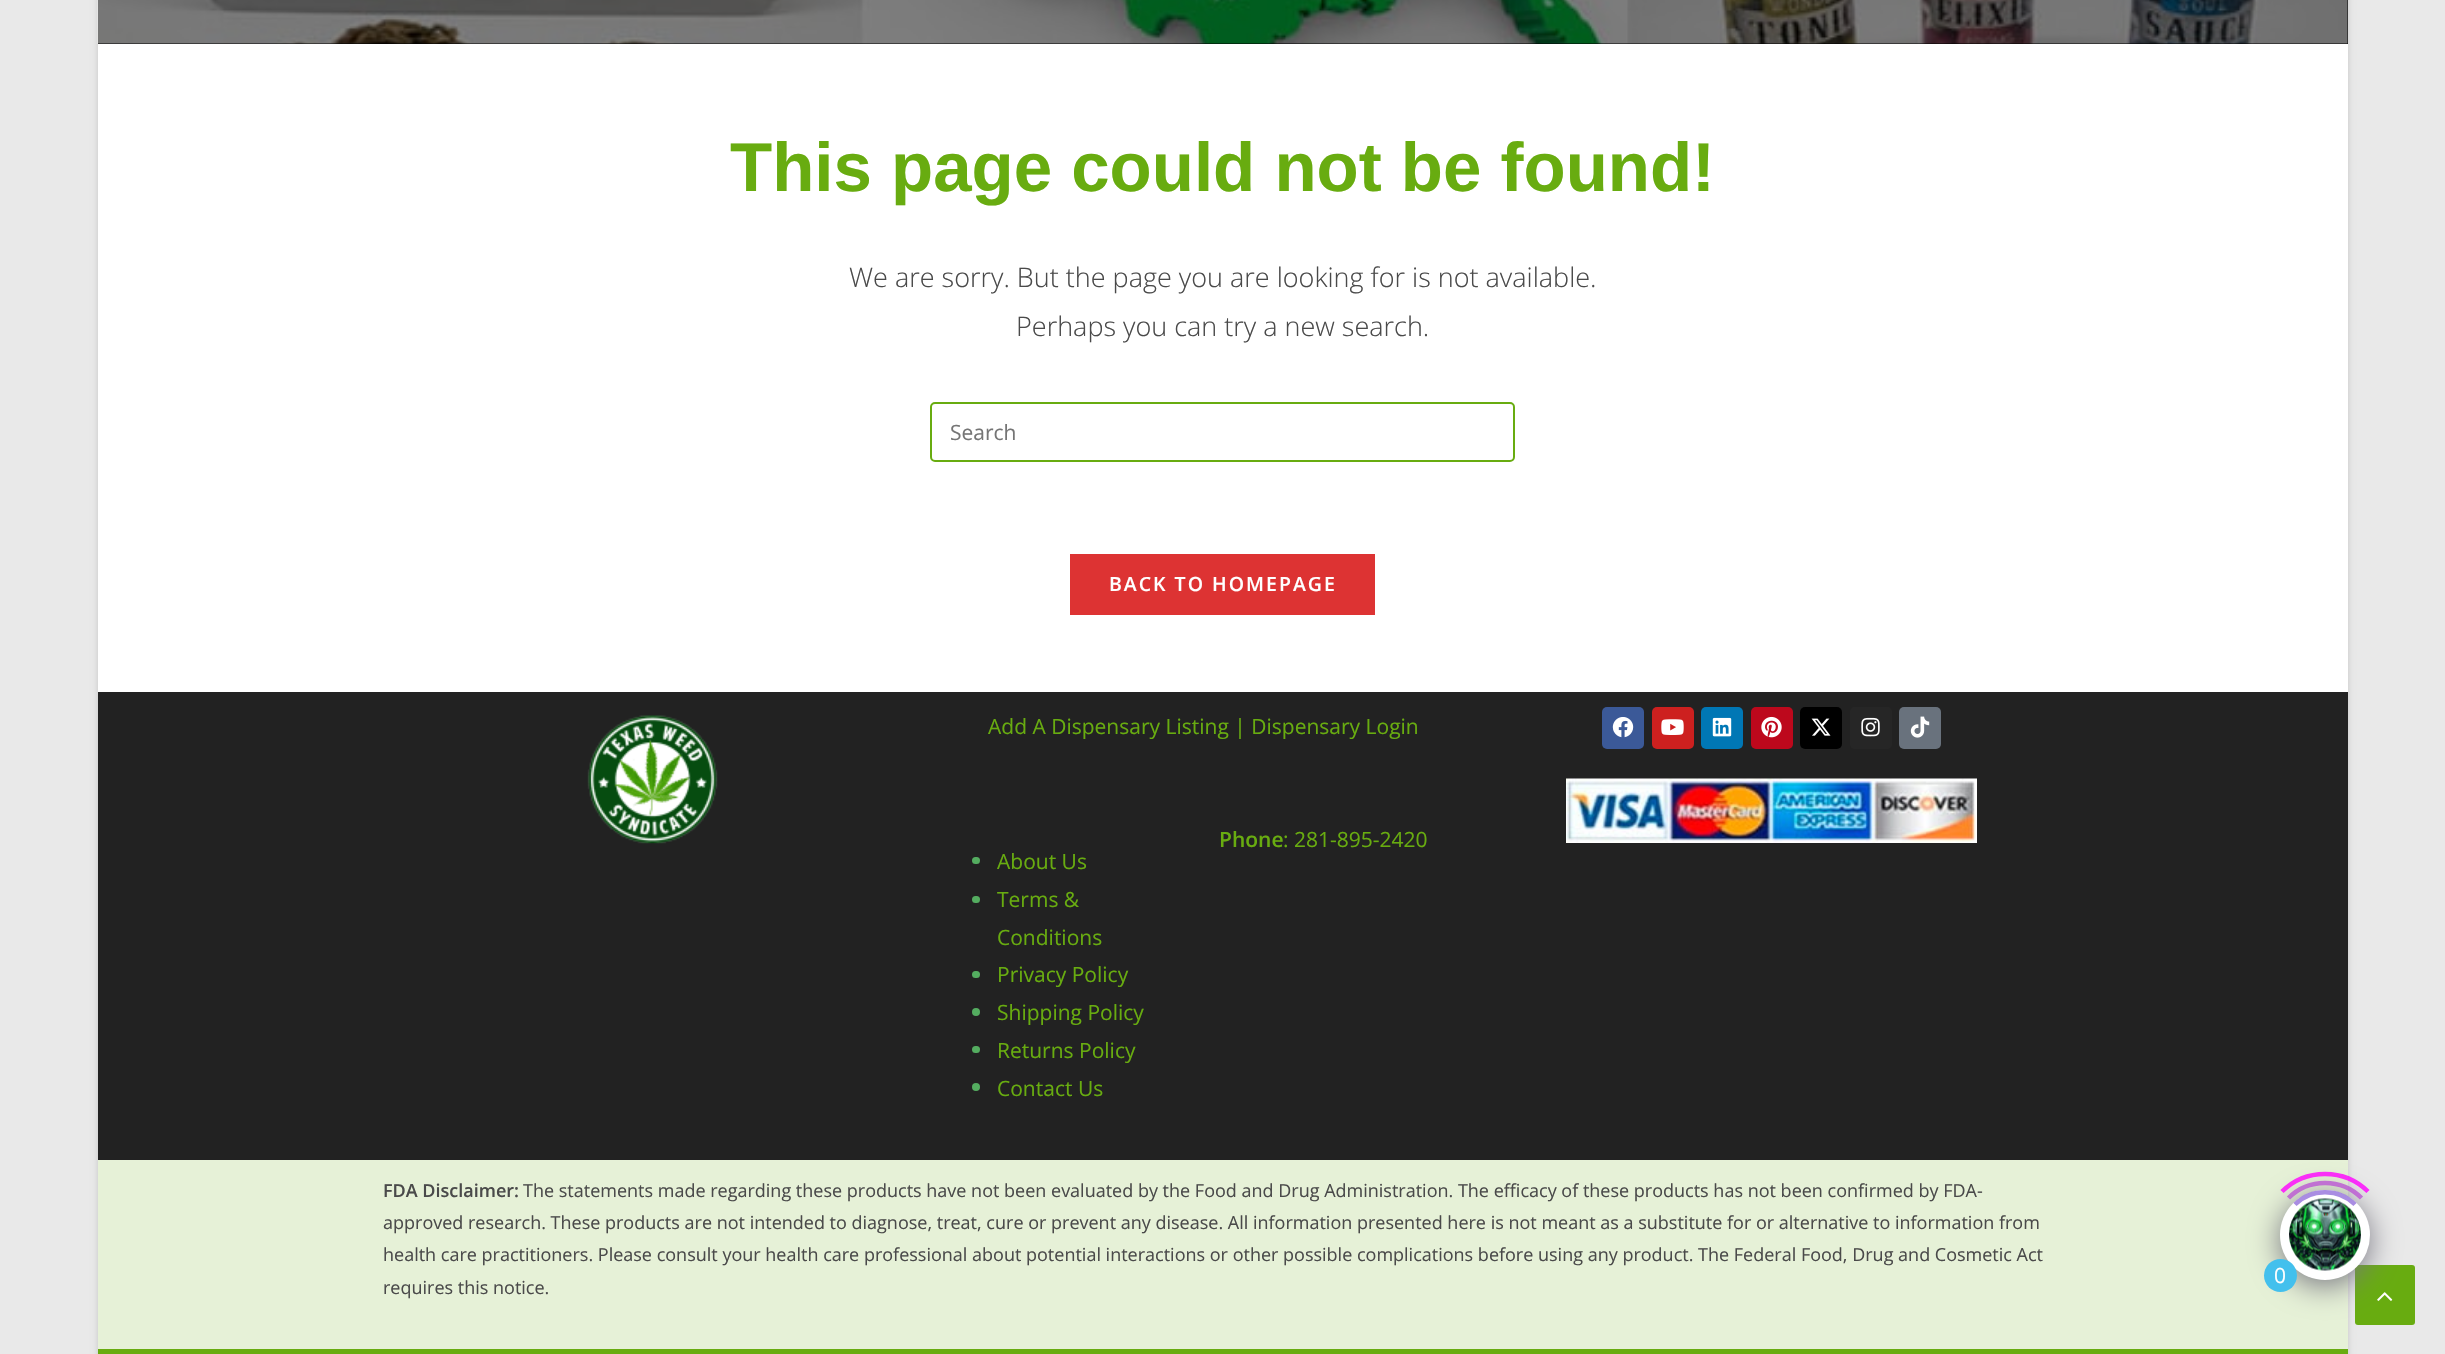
#include "include/core/SkBlurTypes.h"
#include "include/core/SkCanvas.h"
#include "include/core/SkData.h"
#include "include/core/SkFont.h"
#include "include/core/SkFontMgr.h"
#include "include/core/SkImage.h"
#include "include/core/SkMaskFilter.h"
#include "include/core/SkPaint.h"
#include "include/core/SkPathBuilder.h"
#include "include/core/SkTextBlob.h"
#include "include/effects/SkDashPathEffect.h"
#include "include/effects/SkGradientShader.h"
#include "include/utils/SkParsePath.h"

extern sk_sp<SkFontMgr> fontMgr;

void draw(SkCanvas* canvas) {
    SkPaint p;
    p.setAntiAlias(true);
    auto font = [&](const char* family, int weight, float size, bool italic = false) {
        SkFontStyle style(weight, SkFontStyle::kNormal_Width,
            italic ? SkFontStyle::kItalic_Slant : SkFontStyle::kUpright_Slant);
        SkFont result(fontMgr->matchFamilyStyle(family, style), size);
        result.setSubpixel(true);
        return result;
    };
    auto drawTracked = [&](const char* s, float x, float y, const SkFont& font, const SkPaint& ink, float letter, float word) {
        std::vector<SkGlyphID> glyphs(font.countText(s, strlen(s), SkTextEncoding::kUTF8));
        std::vector<float> xs(glyphs.size());
        font.textToGlyphs(s, strlen(s), SkTextEncoding::kUTF8, glyphs);
        font.getXPos(glyphs, xs, x);
        float extra = 0;
        for (size_t i = 0; i < glyphs.size(); i++) {
            xs[i] += extra;
            extra += letter + word * (glyphs[i] == font.unicharToGlyph(' '));
        }
        canvas->drawTextBlob(SkTextBlob::MakeFromPosHGlyphs(glyphs, xs, y, font), 0, 0, ink);
    };
    auto drawPhoto = [&](const char* path, float l, float t, float r, float b) {
        auto image = SkImages::DeferredFromEncodedData(SkData::MakeFromFileName(path));
        canvas->drawImageRect(image, SkRect::MakeLTRB(l, t, r, b), SkSamplingOptions());
    };
    canvas->clear(0xFFE9E9E9);
    p.setColor(0x26000000);
    p.setMaskFilter(SkMaskFilter::MakeBlur(kNormal_SkBlurStyle, 3));
    canvas->drawRect(SkRect::MakeLTRB(98, -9, 2348, 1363), p);
    p.setMaskFilter(nullptr);
    p.setColor(0xFFFFFFFF);
    canvas->drawRect(SkRect::MakeLTRB(98, 44, 2348, 692), p);
    p.setColor(0xFF000000);
    canvas->drawRect(SkRect::MakeLTRB(98, 0, 2348, 44), p);
    drawPhoto("media/1.png", 97, 0, 2348, 44);
    p.setColor(0x80000000);
    canvas->drawRect(SkRect::MakeLTRB(98, 0, 2348, 44), p);
    auto font1 = font("Liberation Sans", 700, 69);
    p.setColor(0xFF68AC10);
    canvas->drawString("This page could not be found!", 730, 191, font1, p);
    auto font2 = font("Open Sans", 300, 27);
    p.setColor(0xFF4A4A4A);
    canvas->drawString("We are sorry. But the page you are looking for is not available.", 849, 287, font2, p);
    canvas->drawString("Perhaps you can try a new search.", 1016, 336, font2, p);
    p.setStyle(SkPaint::kStroke_Style);
    p.setStrokeWidth(2);
    p.setColor(0xFF68AC10);
    canvas->drawRoundRect(SkRect::MakeLTRB(931, 403, 1514, 461), 4, 4, p);
    auto font3 = font("Open Sans", 400, 21);
    p.setStyle(SkPaint::kFill_Style);
    p.setColor(0xFF757575);
    canvas->drawString("Search", 950, 440, font3, p);
    p.setColor(0xFFDD3333);
    canvas->drawRect(SkRect::MakeLTRB(1070, 554, 1375, 615), p);
    auto font4 = font("Open Sans", 600, 19.5f);
    p.setColor(0xFFFFFFFF);
    drawTracked("BACK TO HOMEPAGE", 1109, 591, font4, p, 2, 0);
    p.setColor(0xFF222222);
    canvas->drawRect(SkRect::MakeLTRB(98, 692, 2348, 1160), p);
    drawPhoto("media/2.png", 587, 715, 718, 844);
    p.setColor(0xFF68AC10);
    canvas->drawString("Add A Dispensary Listing | Dispensary Login", 988, 734, font3, p);
    auto font5 = font("Open Sans", 600, 21);
    canvas->drawString("Phone", 1219, 847, font5, p);
    canvas->drawString(": 281-895-2420", 1283, 847, font3, p);
    p.setColor(0xFF54AD60);
    canvas->drawRoundRect(SkRect::MakeLTRB(972, 857, 980, 864), 3.5f, 3.5f, p);
    p.setColor(0xFF68AC10);
    canvas->drawString("About Us", 997, 869, font3, p);
    p.setColor(0xFF54AD60);
    canvas->drawRoundRect(SkRect::MakeLTRB(972, 896, 980, 903), 3.5f, 3.5f, p);
    p.setColor(0xFF68AC10);
    canvas->drawString("Terms &", 997, 907, font3, p);
    canvas->drawString("Conditions", 997, 945, font3, p);
    p.setColor(0xFF54AD60);
    canvas->drawRoundRect(SkRect::MakeLTRB(972, 971, 980, 978), 3.5f, 3.5f, p);
    p.setColor(0xFF68AC10);
    canvas->drawString("Privacy Policy", 997, 982, font3, p);
    p.setColor(0xFF54AD60);
    canvas->drawCircle(976, 1012, 4, p);
    p.setColor(0xFF68AC10);
    canvas->drawString("Shipping Policy", 997, 1020, font3, p);
    p.setColor(0xFF54AD60);
    canvas->drawRoundRect(SkRect::MakeLTRB(972, 1046, 980, 1053), 3.5f, 3.5f, p);
    p.setColor(0xFF68AC10);
    canvas->drawString("Returns Policy", 997, 1058, font3, p);
    p.setColor(0xFF54AD60);
    canvas->drawCircle(976, 1087, 4, p);
    p.setColor(0xFF68AC10);
    canvas->drawString("Contact Us", 997, 1096, font3, p);
    p.setColor(0xFF3B5998);
    canvas->drawRoundRect(SkRect::MakeLTRB(1602, 707, 1644, 749), 5, 5, p);
    drawPhoto("media/3.png", 1612, 717, 1634, 738);
    p.setColor(0xFFCD201F);
    canvas->drawRoundRect(SkRect::MakeLTRB(1652, 707, 1694, 749), 5, 5, p);
    drawPhoto("media/4.png", 1661, 719, 1684, 735);
    p.setColor(0xFF0077B5);
    canvas->drawRoundRect(SkRect::MakeLTRB(1701, 707, 1743, 749), 5, 5, p);
    drawPhoto("media/5.png", 1712, 717, 1732, 737);
    p.setColor(0xFFBD081C);
    canvas->drawRoundRect(SkRect::MakeLTRB(1751, 707, 1793, 749), 5, 5, p);
    drawPhoto("media/6.png", 1761, 716, 1782, 738);
    p.setColor(0xFF000000);
    canvas->drawRoundRect(SkRect::MakeLTRB(1800, 707, 1842, 749), 5, 5, p);
    drawPhoto("media/7.png", 1811, 718, 1831, 736);
    p.setColor(0xFF262626);
    canvas->drawRoundRect(SkRect::MakeLTRB(1850, 707, 1892, 749), 5, 5, p);
    drawPhoto("media/8.png", 1861, 717, 1880, 737);
    p.setColor(0xFF69727D);
    canvas->drawRoundRect(SkRect::MakeLTRB(1899, 707, 1941, 749), 5, 5, p);
    drawPhoto("media/9.png", 1910, 716, 1930, 738);
    drawPhoto("media/10.png", 1566, 778, 1977, 843);
    p.setColor(0xFFE6F1D7);
    canvas->drawRect(SkRect::MakeLTRB(98, 1160, 2348, 1349), p);
    auto font6 = font("Open Sans", 600, 18);
    p.setColor(0xFF4A4A4A);
    canvas->drawString("FDA Disclaimer:", 383, 1197, font6, p);
    auto font7 = font("Open Sans", 400, 18);
    {
        const struct { const char* s; float x, y; } items[] = {
            {"The statements made regarding these products have not been evaluated by the Food and Drug Administration. The efficacy of these products has not been confirmed by FDA-", 523, 1197},
            {"approved research. These products are not intended to diagnose, treat, cure or prevent any disease. All information presented here is not meant as a substitute for or alternative to information from", 383, 1229},
            {"health care practitioners. Please consult your health care professional about potential interactions or other possible complications before using any product. The Federal Food, Drug and Cosmetic Act", 383, 1261},
            {"requires this notice.", 383, 1294},
        };
        for (auto [s, x, y] : items) {
            canvas->drawString(s, x, y, font7, p);
        }
    }
    p.setColor(0xFF68AC10);
    canvas->drawRect(SkRect::MakeLTRB(98, 1349, 2348, 1354), p);
    canvas->drawRoundRect(SkRect::MakeLTRB(2355, 1265, 2415, 1325), 3, 3, p);
    drawPhoto("media/12.png", 2377, 1292, 2393, 1301);
    p.setColor(0xFF767580);
    p.setMaskFilter(SkMaskFilter::MakeBlur(kNormal_SkBlurStyle, 15));
    canvas->drawRoundRect(SkRect::MakeLTRB(2280, 1196, 2370, 1286), 45, 45, p);
    p.setMaskFilter(nullptr);
    p.setColor(0xFFFFFFFF);
    canvas->drawCircle(2325, 1235, 45, p);
    drawPhoto("media/11.png", 2289, 1198, 2361, 1271);
    p.setStyle(SkPaint::kStroke_Style);
    p.setStrokeWidth(4.5f);
    p.setColor(0xCC9370DB);
    canvas->drawPath(SkPathBuilder().moveTo(2295, 1204.5f).cubicTo(2311, 1188, 2339, 1188, 2355, 1204.5f).detach(), p);
    p.setColor(0xCCBA55D3);
    canvas->drawPath(SkPathBuilder().moveTo(2288.5f, 1198).cubicTo(2308.5f, 1178, 2341.5f, 1178, 2361.5f, 1198).detach(), p);
    p.setColor(0xCCFF00FF);
    canvas->drawPath(SkPathBuilder().moveTo(2282, 1191.5f).cubicTo(2305.5f, 1168, 2344.5f, 1168, 2368, 1191.5f).detach(), p);
    p.setStyle(SkPaint::kFill_Style);
    p.setColor(0xFF43C0ED);
    canvas->drawCircle(2280.5f, 1275.5f, 16.5f, p);
    p.setColor(0xFFFFFFFF);
    canvas->drawString("0", 2274, 1283, font3, p);
}
